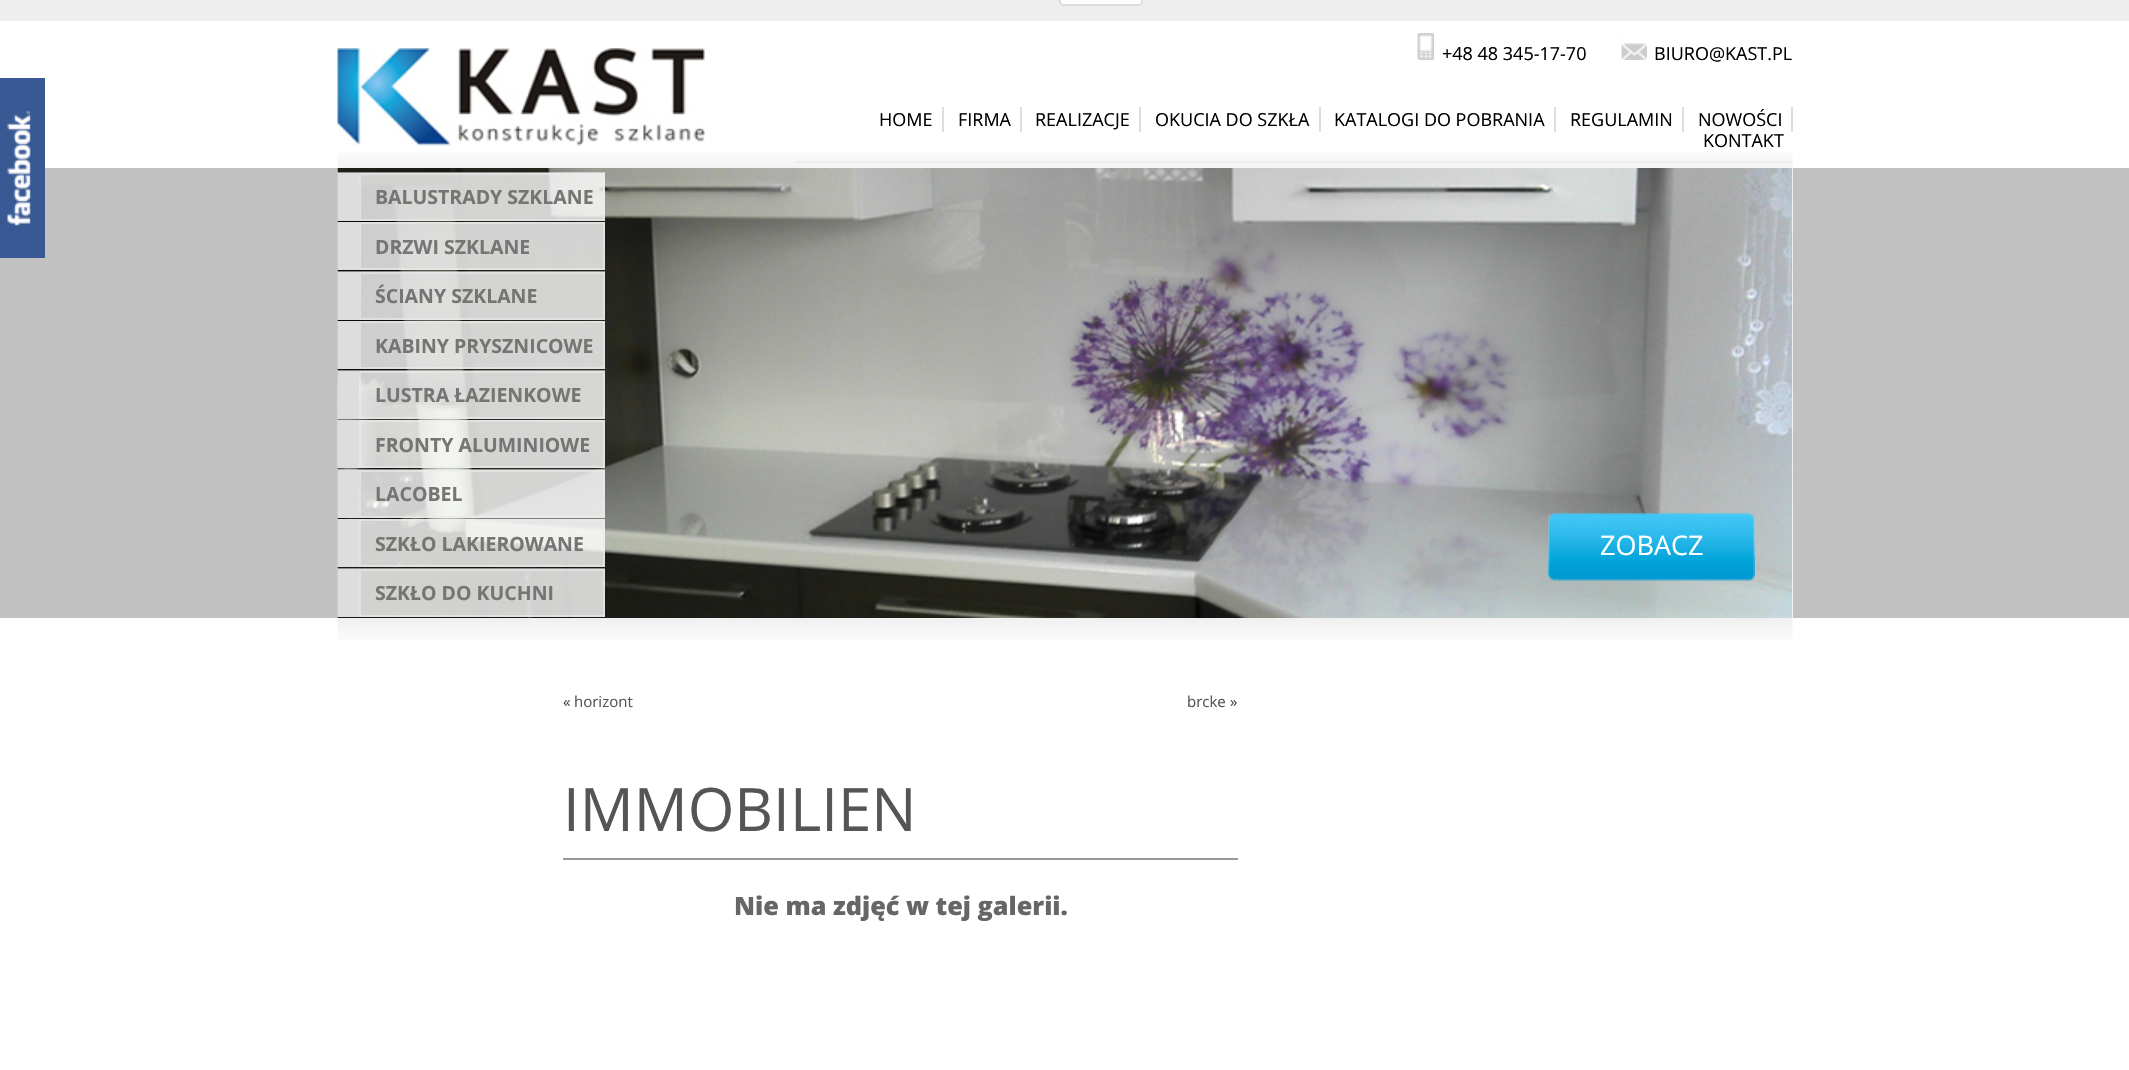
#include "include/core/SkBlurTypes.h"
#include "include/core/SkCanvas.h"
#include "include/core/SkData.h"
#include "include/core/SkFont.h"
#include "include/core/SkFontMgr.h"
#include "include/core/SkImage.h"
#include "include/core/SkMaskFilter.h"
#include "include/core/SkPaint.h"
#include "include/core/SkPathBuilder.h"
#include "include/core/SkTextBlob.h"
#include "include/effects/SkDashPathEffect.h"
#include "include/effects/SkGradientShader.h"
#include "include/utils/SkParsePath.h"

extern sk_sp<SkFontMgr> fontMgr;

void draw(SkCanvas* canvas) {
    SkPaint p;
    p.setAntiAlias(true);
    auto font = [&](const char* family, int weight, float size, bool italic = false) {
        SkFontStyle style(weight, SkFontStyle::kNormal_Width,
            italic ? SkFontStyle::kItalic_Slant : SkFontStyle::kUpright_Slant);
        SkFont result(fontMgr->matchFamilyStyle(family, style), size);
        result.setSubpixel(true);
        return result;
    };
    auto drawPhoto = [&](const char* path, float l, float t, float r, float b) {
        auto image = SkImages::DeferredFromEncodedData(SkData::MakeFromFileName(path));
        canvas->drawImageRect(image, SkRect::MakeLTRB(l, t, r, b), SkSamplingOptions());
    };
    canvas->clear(0xFFFFFFFF);
    p.setColor(0xFFEEEEEE);
    canvas->drawRect(SkRect::MakeLTRB(0, 0, 2129, 21), p);
    p.setColor(0xFFFFFFFF);
    canvas->drawRoundRect(SkRect::MakeLTRB(1060, -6, 1142, 5), 4, 4, p);
    p.setStyle(SkPaint::kStroke_Style);
    p.setStrokeWidth(2);
    p.setColor(0xFFDDDDDD);
    canvas->drawRoundRect(SkRect::MakeLTRB(1060, -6, 1142, 5), 4, 4, p);
    p.setStyle(SkPaint::kFill_Style);
    p.setColor(0xFFC1C1C1);
    canvas->drawRect(SkRect::MakeLTRB(0, 168, 2129, 618), p);
    p.setColor(0xFF395994);
    canvas->drawRect(SkRect::MakeLTRB(0, 78, 45, 258), p);
    drawPhoto("media/1.png", 7, 110, 31, 226);
    p.setColor(0xFFFFFFFF);
    canvas->drawRect(SkRect::MakeLTRB(338, 168, 1793, 618), p);
    drawPhoto("media/2.png", 337, 152, 1793, 168);
    drawPhoto("media/3.png", 337, 48, 705, 146);
    drawPhoto("media/4.png", 1417, 33, 1434, 60);
    auto font1 = font("Open Sans", 400, 18);
    p.setColor(0xFF000000);
    canvas->drawString("+48 48 345-17-70", 1442, 60, font1, p);
    drawPhoto("media/5.png", 1621, 37, 1647, 60);
    canvas->drawString("BIURO@KAST.PL", 1654, 60, font1, p);
    p.setColor(0xFFEEEEEE);
    canvas->drawRect(SkRect::MakeLTRB(795, 161, 1793, 163), p);
    p.setColor(0xFF000000);
    canvas->drawString("HOME", 879, 126, font1, p);
    p.setColor(0xFFDDDDDD);
    canvas->drawRect(SkRect::MakeLTRB(942, 107, 944, 132), p);
    p.setColor(0xFF000000);
    canvas->drawString("FIRMA", 958, 126, font1, p);
    p.setColor(0xFFDDDDDD);
    canvas->drawRect(SkRect::MakeLTRB(1020, 107, 1022, 132), p);
    p.setColor(0xFF000000);
    canvas->drawString("REALIZACJE", 1035, 126, font1, p);
    p.setColor(0xFFDDDDDD);
    canvas->drawRect(SkRect::MakeLTRB(1139, 107, 1141, 132), p);
    p.setColor(0xFF000000);
    canvas->drawString("OKUCIA DO SZKŁA", 1155, 126, font1, p);
    p.setColor(0xFFDDDDDD);
    canvas->drawRect(SkRect::MakeLTRB(1319, 107, 1321, 132), p);
    p.setColor(0xFF000000);
    canvas->drawString("KATALOGI DO POBRANIA", 1334, 126, font1, p);
    p.setColor(0xFFDDDDDD);
    canvas->drawRect(SkRect::MakeLTRB(1554, 107, 1556, 132), p);
    p.setColor(0xFF000000);
    canvas->drawString("REGULAMIN", 1570, 126, font1, p);
    p.setColor(0xFFDDDDDD);
    canvas->drawRect(SkRect::MakeLTRB(1682, 107, 1684, 132), p);
    p.setColor(0xFF000000);
    canvas->drawString("NOWOŚCI", 1698, 126, font1, p);
    p.setColor(0xFFDDDDDD);
    canvas->drawRect(SkRect::MakeLTRB(1791, 107, 1793, 132), p);
    p.setColor(0xFF000000);
    canvas->drawString("KONTAKT", 1703, 147, font1, p);
    drawPhoto("media/6.png", 337, 168, 1793, 618);
    {
        const struct { float l, t, r, b; SkColor color; } items[] = {
            {337, 172, 605, 221, 0x80FFFFFF},
            {338, 173, 359, 221, 0xFFDDDDDD},
            {359, 173, 605, 221, 0x99FFFFFF},
        };
        for (auto [l, t, r, b, color] : items) {
            p.setColor(color);
            canvas->drawRect(SkRect::MakeLTRB(l, t, r, b), p);
        }
    }
    p.setStyle(SkPaint::kStroke_Style);
    p.setColor(0x99EBEBEB);
    canvas->drawRect(SkRect::MakeLTRB(360, 174, 604, 220), p);
    auto font2 = font("Open Sans", 700, 19.5f);
    p.setStyle(SkPaint::kFill_Style);
    p.setColor(0xFF757574);
    canvas->drawString("BALUSTRADY SZKLANE", 375, 204, font2, p);
    {
        const struct { float l, t, r, b; SkColor color; } items[] = {
            {337, 222, 605, 270, 0x80FFFFFF},
            {338, 222, 359, 270, 0xFFDDDDDD},
            {359, 222, 605, 270, 0x99FFFFFF},
        };
        for (auto [l, t, r, b, color] : items) {
            p.setColor(color);
            canvas->drawRect(SkRect::MakeLTRB(l, t, r, b), p);
        }
    }
    p.setStyle(SkPaint::kStroke_Style);
    p.setColor(0x99EBEBEB);
    canvas->drawRect(SkRect::MakeLTRB(360, 223, 604, 269), p);
    p.setStyle(SkPaint::kFill_Style);
    p.setColor(0xFF757574);
    canvas->drawString("DRZWI SZKLANE", 375, 254, font2, p);
    {
        const struct { float l, t, r, b; SkColor color; } items[] = {
            {337, 271, 605, 320, 0x80FFFFFF},
            {338, 272, 359, 320, 0xFFDDDDDD},
            {359, 272, 605, 320, 0x99FFFFFF},
        };
        for (auto [l, t, r, b, color] : items) {
            p.setColor(color);
            canvas->drawRect(SkRect::MakeLTRB(l, t, r, b), p);
        }
    }
    p.setStyle(SkPaint::kStroke_Style);
    p.setColor(0x99EBEBEB);
    canvas->drawRect(SkRect::MakeLTRB(360, 273, 604, 319), p);
    p.setStyle(SkPaint::kFill_Style);
    p.setColor(0xFF757574);
    canvas->drawString("ŚCIANY SZKLANE", 375, 303, font2, p);
    {
        const struct { float l, t, r, b; SkColor color; } items[] = {
            {337, 321, 605, 369, 0x80FFFFFF},
            {338, 321, 359, 369, 0xFFDDDDDD},
            {359, 321, 605, 369, 0x99FFFFFF},
        };
        for (auto [l, t, r, b, color] : items) {
            p.setColor(color);
            canvas->drawRect(SkRect::MakeLTRB(l, t, r, b), p);
        }
    }
    p.setStyle(SkPaint::kStroke_Style);
    p.setColor(0x99EBEBEB);
    canvas->drawRect(SkRect::MakeLTRB(360, 322, 604, 368), p);
    p.setStyle(SkPaint::kFill_Style);
    p.setColor(0xFF757574);
    canvas->drawString("KABINY PRYSZNICOWE", 375, 353, font2, p);
    {
        const struct { float l, t, r, b; SkColor color; } items[] = {
            {337, 370, 605, 419, 0x80FFFFFF},
            {338, 371, 359, 419, 0xFFDDDDDD},
            {359, 371, 605, 419, 0x99FFFFFF},
        };
        for (auto [l, t, r, b, color] : items) {
            p.setColor(color);
            canvas->drawRect(SkRect::MakeLTRB(l, t, r, b), p);
        }
    }
    p.setStyle(SkPaint::kStroke_Style);
    p.setColor(0x99EBEBEB);
    canvas->drawRect(SkRect::MakeLTRB(360, 372, 604, 418), p);
    p.setStyle(SkPaint::kFill_Style);
    p.setColor(0xFF757574);
    canvas->drawString("LUSTRA ŁAZIENKOWE", 375, 402, font2, p);
    {
        const struct { float l, t, r, b; SkColor color; } items[] = {
            {337, 420, 605, 468, 0x80FFFFFF},
            {338, 420, 359, 468, 0xFFDDDDDD},
            {359, 420, 605, 468, 0x99FFFFFF},
        };
        for (auto [l, t, r, b, color] : items) {
            p.setColor(color);
            canvas->drawRect(SkRect::MakeLTRB(l, t, r, b), p);
        }
    }
    p.setStyle(SkPaint::kStroke_Style);
    p.setColor(0x99EBEBEB);
    canvas->drawRect(SkRect::MakeLTRB(360, 421, 604, 467), p);
    p.setStyle(SkPaint::kFill_Style);
    p.setColor(0xFF757574);
    canvas->drawString("FRONTY ALUMINIOWE", 375, 452, font2, p);
    {
        const struct { float l, t, r, b; SkColor color; } items[] = {
            {337, 469, 605, 518, 0x80FFFFFF},
            {338, 470, 359, 518, 0xFFDDDDDD},
            {359, 470, 605, 518, 0x99FFFFFF},
        };
        for (auto [l, t, r, b, color] : items) {
            p.setColor(color);
            canvas->drawRect(SkRect::MakeLTRB(l, t, r, b), p);
        }
    }
    p.setStyle(SkPaint::kStroke_Style);
    p.setColor(0x99EBEBEB);
    canvas->drawRect(SkRect::MakeLTRB(360, 471, 604, 517), p);
    p.setStyle(SkPaint::kFill_Style);
    p.setColor(0xFF757574);
    canvas->drawString("LACOBEL", 375, 501, font2, p);
    {
        const struct { float l, t, r, b; SkColor color; } items[] = {
            {337, 519, 605, 567, 0x80FFFFFF},
            {338, 519, 359, 567, 0xFFDDDDDD},
            {359, 519, 605, 567, 0x99FFFFFF},
        };
        for (auto [l, t, r, b, color] : items) {
            p.setColor(color);
            canvas->drawRect(SkRect::MakeLTRB(l, t, r, b), p);
        }
    }
    p.setStyle(SkPaint::kStroke_Style);
    p.setColor(0x99EBEBEB);
    canvas->drawRect(SkRect::MakeLTRB(360, 520, 604, 566), p);
    p.setStyle(SkPaint::kFill_Style);
    p.setColor(0xFF757574);
    canvas->drawString("SZKŁO LAKIEROWANE", 375, 551, font2, p);
    {
        const struct { float l, t, r, b; SkColor color; } items[] = {
            {337, 568, 605, 617, 0x80FFFFFF},
            {338, 569, 359, 617, 0xFFDDDDDD},
            {359, 569, 605, 617, 0x99FFFFFF},
        };
        for (auto [l, t, r, b, color] : items) {
            p.setColor(color);
            canvas->drawRect(SkRect::MakeLTRB(l, t, r, b), p);
        }
    }
    p.setStyle(SkPaint::kStroke_Style);
    p.setColor(0x99EBEBEB);
    canvas->drawRect(SkRect::MakeLTRB(360, 570, 604, 616), p);
    p.setStyle(SkPaint::kFill_Style);
    p.setColor(0xFF757574);
    canvas->drawString("SZKŁO DO KUCHNI", 375, 600, font2, p);
    drawPhoto("media/7.png", 1548, 513, 1755, 581);
    auto font3 = font("Open Sans", 400, 27);
    p.setColor(0xFFFFFFFF);
    canvas->drawString("ZOBACZ", 1600, 555, font3, p);
    drawPhoto("media/8.png", 337, 618, 1793, 640);
    auto font4 = font("Open Sans", 400, 15);
    p.setColor(0xFF444444);
    canvas->drawString("«", 563, 707, font4, p);
    p.setColor(0xFF555555);
    canvas->drawString("horizont", 574, 707, font4, p);
    canvas->drawString("brcke", 1187, 707, font4, p);
    p.setColor(0xFF444444);
    canvas->drawString("»", 1230, 707, font4, p);
    p.setColor(0xFF999999);
    canvas->drawRect(SkRect::MakeLTRB(563, 858, 1238, 860), p);
    auto font5 = font("Open Sans", 400, 60);
    p.setColor(0xFF555555);
    canvas->drawString("IMMOBILIEN", 563, 831, font5, p);
    auto font6 = font("Open Sans", 800, 25.25f);
    p.setColor(0xFF666666);
    canvas->drawString("Nie ma zdjęć w tej galerii.", 734, 915, font6, p);
}
